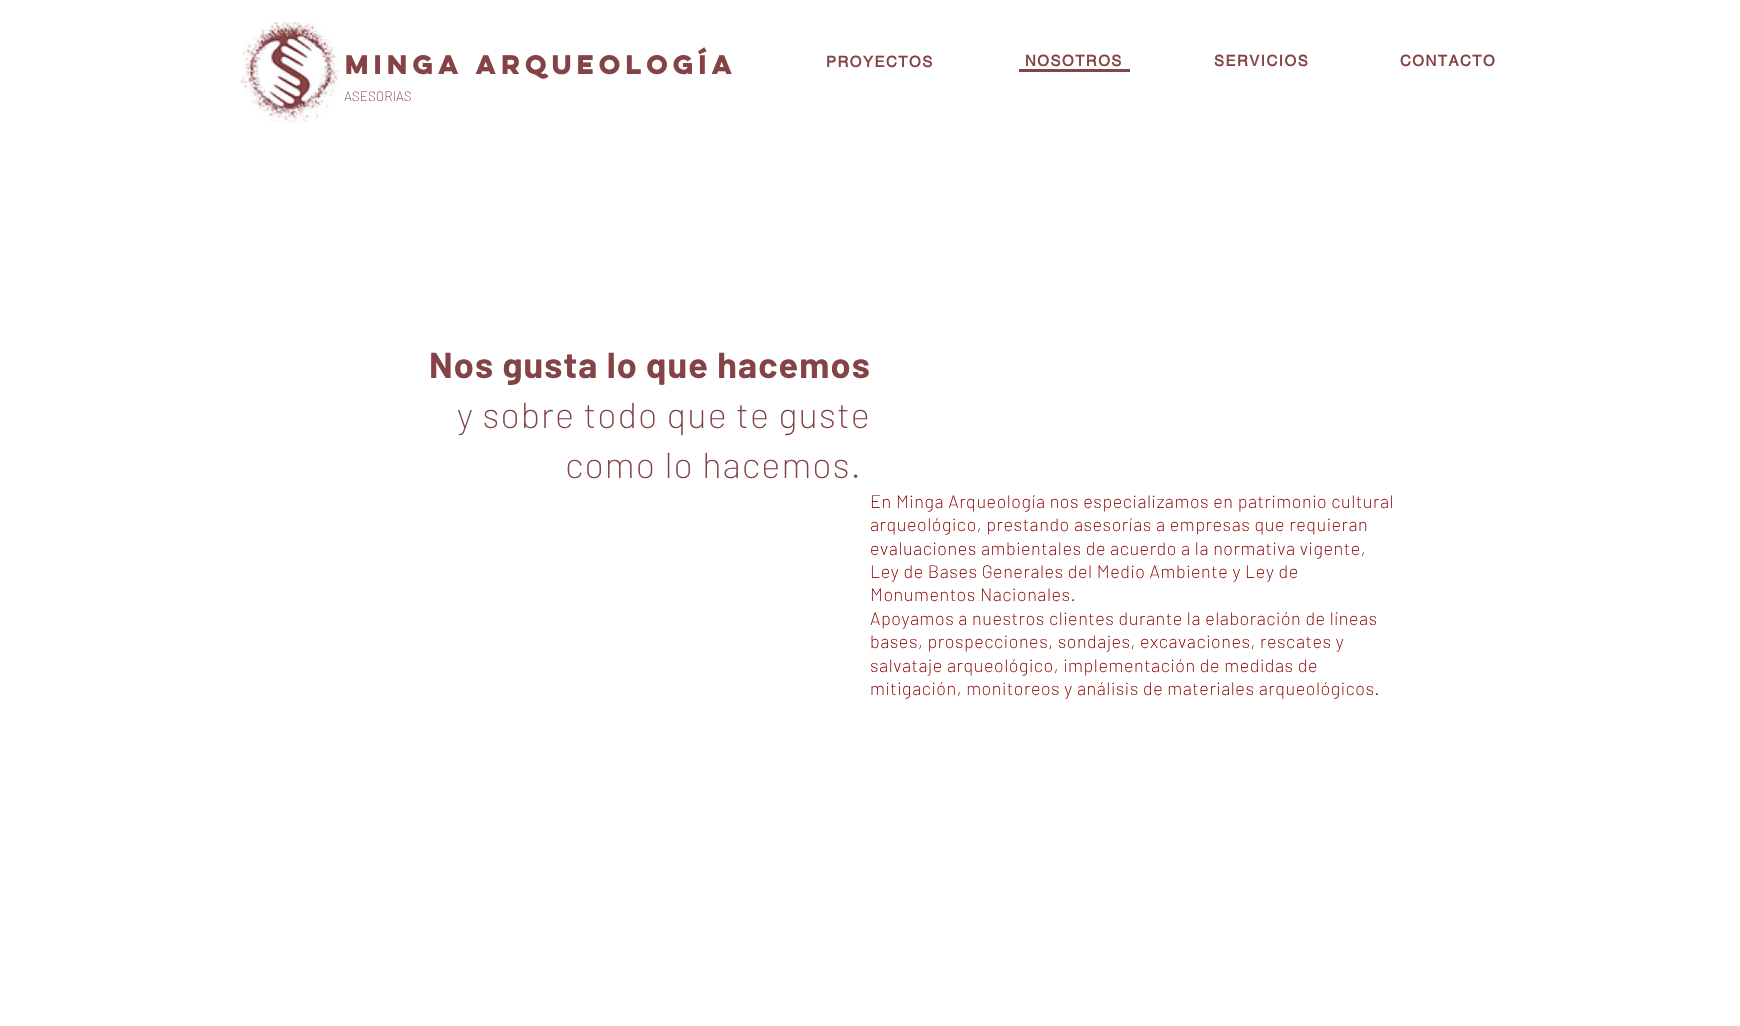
#include "include/core/SkBlurTypes.h"
#include "include/core/SkCanvas.h"
#include "include/core/SkData.h"
#include "include/core/SkFont.h"
#include "include/core/SkFontMgr.h"
#include "include/core/SkImage.h"
#include "include/core/SkMaskFilter.h"
#include "include/core/SkPaint.h"
#include "include/core/SkPathBuilder.h"
#include "include/core/SkTextBlob.h"
#include "include/effects/SkDashPathEffect.h"
#include "include/effects/SkGradientShader.h"
#include "include/utils/SkParsePath.h"

extern sk_sp<SkFontMgr> fontMgr;

void draw(SkCanvas* canvas) {
    SkPaint p;
    p.setAntiAlias(true);
    auto font = [&](const char* family, int weight, float size, bool italic = false) {
        SkFontStyle style(weight, SkFontStyle::kNormal_Width,
            italic ? SkFontStyle::kItalic_Slant : SkFontStyle::kUpright_Slant);
        SkFont result(fontMgr->matchFamilyStyle(family, style), size);
        result.setSubpixel(true);
        return result;
    };
    auto drawTracked = [&](const char* s, float x, float y, const SkFont& font, const SkPaint& ink, float letter, float word) {
        std::vector<SkGlyphID> glyphs(font.countText(s, strlen(s), SkTextEncoding::kUTF8));
        std::vector<float> xs(glyphs.size());
        font.textToGlyphs(s, strlen(s), SkTextEncoding::kUTF8, glyphs);
        font.getXPos(glyphs, xs, x);
        float extra = 0;
        for (size_t i = 0; i < glyphs.size(); i++) {
            xs[i] += extra;
            extra += letter + word * (glyphs[i] == font.unicharToGlyph(' '));
        }
        canvas->drawTextBlob(SkTextBlob::MakeFromPosHGlyphs(glyphs, xs, y, font), 0, 0, ink);
    };
    auto drawPhoto = [&](const char* path, float l, float t, float r, float b) {
        auto image = SkImages::DeferredFromEncodedData(SkData::MakeFromFileName(path));
        canvas->drawImageRect(image, SkRect::MakeLTRB(l, t, r, b), SkSamplingOptions());
    };
    canvas->clear(0xFFFFFFFF);
    drawPhoto("media/1.png", 240, 21, 340, 123);
    auto font1 = font("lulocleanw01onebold", 700, 24);
    p.setColor(0xFF844347);
    canvas->drawString("minga arqueología", 345, 74, font1, p);
    auto font2 = font("helvetica", 700, 15);
    drawTracked("PROYECTOS", 826, 67, font2, p, 1.5f, 0);
    p.setColor(0xFF824646);
    canvas->drawRect(SkRect::MakeLTRB(1019, 69, 1130, 72), p);
    p.setColor(0xFF844347);
    {
        const struct { const char* s; float x, y; } items[] = {
            {"NOSOTROS", 1025, 66},
            {"SERVICIOS", 1214, 66},
            {"CONTACTO", 1400, 66},
        };
        for (auto [s, x, y] : items) {
            drawTracked(s, x, y, font2, p, 1.5f, 0);
        }
    }
    auto font3 = font("Barlow", 200, 13.5f);
    canvas->drawString("ASESORIAS", 344, 101, font3, p);
    auto font4 = font("Barlow", 700, 36);
    drawTracked("Nos gusta lo que hacemos", 429, 378, font4, p, 1.1f, 0);
    auto font5 = font("Barlow", 200, 36);
    drawTracked("y sobre todo que te guste", 457, 428, font5, p, 1.1f, 0);
    drawTracked("como lo hacemos.", 565, 478, font5, p, 1.1f, 0);
    auto font6 = font("Barlow", 200, 18);
    p.setColor(0xFF8B0000);
    {
        const struct { const char* s; float x, y; } items[] = {
            {"En Minga Arqueología nos especializamos en patrimonio cultural", 870, 508},
            {"arqueológico, prestando asesorías a empresas que requieran", 870, 531},
            {"evaluaciones ambientales de acuerdo a la normativa vigente,", 870, 555},
            {"Ley de Bases Generales del Medio Ambiente y Ley de", 870, 578},
            {"Monumentos Nacionales.", 870, 601},
            {"Apoyamos a nuestros clientes durante la elaboración de líneas", 870, 625},
            {"bases, prospecciones, sondajes, excavaciones, rescates y", 870, 648},
            {"salvataje arqueológico, implementación de medidas de", 870, 672},
            {"mitigación, monitoreos y análisis de materiales arqueológicos.", 870, 695},
        };
        for (auto [s, x, y] : items) {
            drawTracked(s, x, y, font6, p, 0.55f, 0);
        }
    }
}
